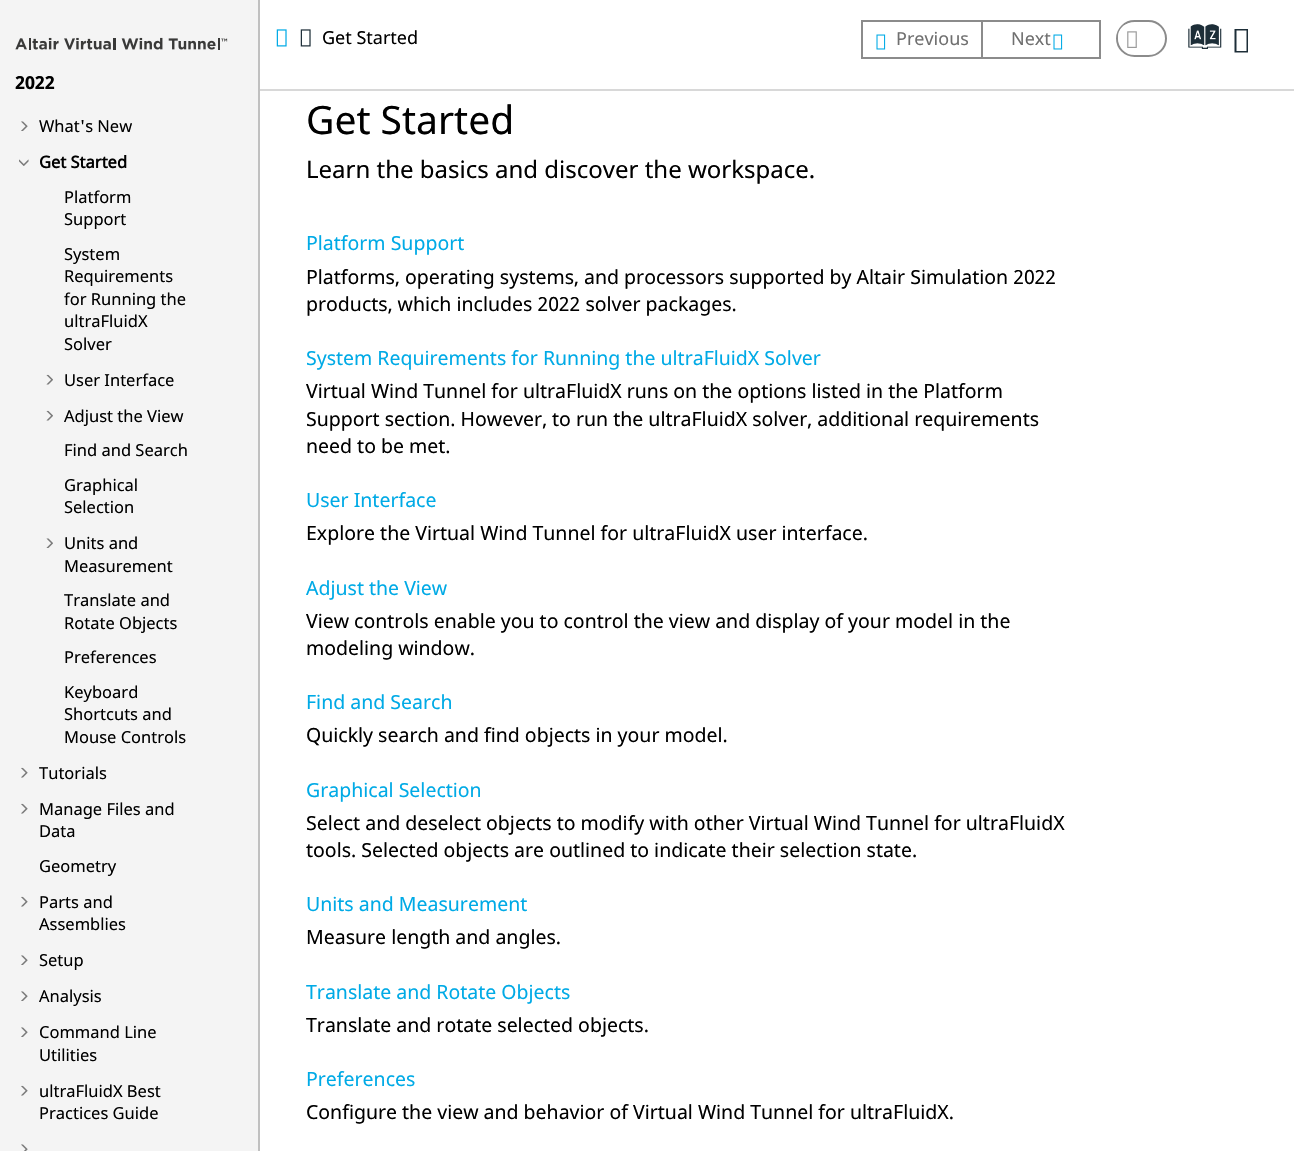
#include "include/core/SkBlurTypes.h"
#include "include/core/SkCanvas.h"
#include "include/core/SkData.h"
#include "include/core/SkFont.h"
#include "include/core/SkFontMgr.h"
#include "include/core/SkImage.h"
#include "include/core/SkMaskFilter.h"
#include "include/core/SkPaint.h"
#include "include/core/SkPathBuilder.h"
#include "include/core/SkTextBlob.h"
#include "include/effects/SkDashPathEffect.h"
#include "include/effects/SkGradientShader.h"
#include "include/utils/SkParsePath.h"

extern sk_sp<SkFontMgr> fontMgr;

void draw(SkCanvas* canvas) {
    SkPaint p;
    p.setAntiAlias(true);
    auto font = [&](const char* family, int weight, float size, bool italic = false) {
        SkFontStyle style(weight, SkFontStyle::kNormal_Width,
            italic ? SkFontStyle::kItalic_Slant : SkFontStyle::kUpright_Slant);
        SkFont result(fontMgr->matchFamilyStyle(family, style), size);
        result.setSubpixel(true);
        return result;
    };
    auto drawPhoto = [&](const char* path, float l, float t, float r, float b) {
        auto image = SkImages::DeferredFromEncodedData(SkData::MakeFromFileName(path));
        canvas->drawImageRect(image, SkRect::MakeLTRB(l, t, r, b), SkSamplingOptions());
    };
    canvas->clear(0xFFFFFFFF);
    p.setColor(0xFFF4F4F4);
    canvas->drawRect(SkRect::MakeLTRB(0, 0, 258, 1151), p);
    p.setColor(0xFFC0C0C0);
    canvas->drawRect(SkRect::MakeLTRB(258, 0, 260, 1151), p);
    drawPhoto("media/1.png", 15, 37, 228, 50);
    auto font1 = font("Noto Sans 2", 700, 18);
    p.setColor(0xFF000000);
    canvas->drawString("2022", 15, 89, font1, p);
    drawPhoto("media/2.png", 21, 121, 28, 131);
    auto font2 = font("Noto Sans", 400, 16.5f);
    canvas->drawString("What's New", 39, 132, font2, p);
    drawPhoto("media/3.png", 19, 159, 29, 166);
    auto font3 = font("Noto Sans", 700, 16.5f);
    canvas->drawString("Get Started", 39, 168, font3, p);
    {
        const struct { const char* s; float x, y; } items[] = {
            {"Platform", 64, 203},
            {"Support", 64, 225},
            {"System", 64, 260},
            {"Requirements", 64, 282},
            {"for Running the", 64, 305},
            {"ultraFluidX", 64, 327},
            {"Solver", 64, 350},
        };
        for (auto [s, x, y] : items) {
            canvas->drawString(s, x, y, font2, p);
        }
    }
    drawPhoto("media/4.png", 46, 374, 53, 385);
    canvas->drawString("User Interface", 64, 386, font2, p);
    drawPhoto("media/4.png", 46, 410, 53, 421);
    {
        const struct { const char* s; float x, y; } items[] = {
            {"Adjust the View", 64, 422},
            {"Find and Search", 64, 456},
            {"Graphical", 64, 491},
            {"Selection", 64, 513},
        };
        for (auto [s, x, y] : items) {
            canvas->drawString(s, x, y, font2, p);
        }
    }
    drawPhoto("media/5.png", 46, 538, 53, 548);
    {
        const struct { const char* s; float x, y; } items[] = {
            {"Units and", 64, 549},
            {"Measurement", 64, 572},
            {"Translate and", 64, 606},
            {"Rotate Objects", 64, 629},
            {"Preferences", 64, 663},
            {"Keyboard", 64, 698},
            {"Shortcuts and", 64, 720},
            {"Mouse Controls", 64, 743},
        };
        for (auto [s, x, y] : items) {
            canvas->drawString(s, x, y, font2, p);
        }
    }
    drawPhoto("media/6.png", 21, 767, 28, 778);
    canvas->drawString("Tutorials", 39, 779, font2, p);
    drawPhoto("media/6.png", 21, 803, 28, 814);
    {
        const struct { const char* s; float x, y; } items[] = {
            {"Manage Files and", 39, 815},
            {"Data", 39, 837},
            {"Geometry", 39, 872},
        };
        for (auto [s, x, y] : items) {
            canvas->drawString(s, x, y, font2, p);
        }
    }
    drawPhoto("media/6.png", 21, 896, 28, 907);
    canvas->drawString("Parts and", 39, 908, font2, p);
    canvas->drawString("Assemblies", 39, 930, font2, p);
    drawPhoto("media/2.png", 21, 955, 28, 965);
    canvas->drawString("Setup", 39, 966, font2, p);
    drawPhoto("media/2.png", 21, 991, 28, 1001);
    canvas->drawString("Analysis", 39, 1002, font2, p);
    drawPhoto("media/2.png", 21, 1027, 28, 1037);
    canvas->drawString("Command Line", 39, 1038, font2, p);
    canvas->drawString("Utilities", 39, 1061, font2, p);
    drawPhoto("media/6.png", 21, 1085, 28, 1096);
    canvas->drawString("ultraFluidX Best", 39, 1097, font2, p);
    canvas->drawString("Practices Guide", 39, 1119, font2, p);
    drawPhoto("media/7.png", 21, 1144, 28, 1151);
    p.setColor(0xFFD8D8D8);
    canvas->drawRect(SkRect::MakeLTRB(260, 89, 1294, 91), p);
    drawPhoto("media/8.png", 276, 29, 287, 47);
    drawPhoto("media/9.png", 300, 29, 311, 47);
    auto font4 = font("Noto Sans", 400, 18);
    p.setColor(0xFF000000);
    canvas->drawString("Get Started", 322, 44, font4, p);
    {
        const struct { float l, t, r, b; SkColor color; } items[] = {
            {861, 20, 981, 22, 0xFF8B8B8B},
            {861, 57, 981, 59, 0xFF8B8B8B},
            {861, 20, 863, 59, 0xFF8B8B8B},
        };
        for (auto [l, t, r, b, color] : items) {
            p.setColor(color);
            canvas->drawRect(SkRect::MakeLTRB(l, t, r, b), p);
        }
    }
    drawPhoto("media/10.png", 876, 34, 886, 50);
    p.setColor(0xFF707070);
    canvas->drawString("Previous", 896, 45, font4, p);
    p.setStyle(SkPaint::kStroke_Style);
    p.setStrokeWidth(2);
    p.setColor(0xFF8B8B8B);
    canvas->drawRect(SkRect::MakeLTRB(982, 21, 1100, 58), p);
    p.setStyle(SkPaint::kFill_Style);
    p.setColor(0xFF707070);
    canvas->drawString("Next", 1011, 45, font4, p);
    drawPhoto("media/10.png", 1053, 34, 1063, 50);
    p.setStyle(SkPaint::kStroke_Style);
    p.setColor(0xFF8B8B8B);
    canvas->drawRoundRect(SkRect::MakeLTRB(1117, 21, 1166, 56), 17.5f, 17.5f, p);
    p.setStyle(SkPaint::kFill_Style);
    p.setColor(0xFFFFFFFF);
    canvas->drawRoundRect(SkRect::MakeLTRB(1118, 23, 1148, 51), 14, 14, p);
    drawPhoto("media/11.png", 1127, 31, 1137, 48);
    auto font5 = font("Oxygen", 400, 35);
    p.setColor(0xFF1D2E38);
    canvas->drawString("a", 1192, 53, font5, p);
    canvas->drawPath(SkPathBuilder().moveTo(1234.5f, 52.5f).lineTo(1234.5f, 29).lineTo(1248, 29).lineTo(1248, 52.5f).close().moveTo(1236.5f, 51).lineTo(1246.5f, 51).lineTo(1246.5f, 30.5f).lineTo(1236.5f, 30.5f).close().detach(), p);
    auto font6 = font("Noto Sans", 400, 39);
    p.setColor(0xFF000000);
    canvas->drawString("Get Started", 306, 134, font6, p);
    auto font7 = font("Noto Sans", 400, 24);
    canvas->drawString("Learn the basics and discover the workspace.", 306, 178, font7, p);
    auto font8 = font("Noto Sans", 400, 19.5f);
    p.setColor(0xFF00AAE6);
    canvas->drawString("Platform Support", 306, 250, font8, p);
    p.setColor(0xFF000000);
    canvas->drawString("Platforms, operating systems, and processors supported by Altair Simulation 2022", 306, 284, font8, p);
    canvas->drawString("products, which includes 2022 solver packages.", 306, 311, font8, p);
    p.setColor(0xFF00AAE6);
    canvas->drawString("System Requirements for Running the ultraFluidX Solver", 306, 365, font8, p);
    p.setColor(0xFF000000);
    {
        const struct { const char* s; float x, y; } items[] = {
            {"Virtual Wind Tunnel for ultraFluidX runs on the options listed in the Platform", 306, 398},
            {"Support section. However, to run the ultraFluidX solver, additional requirements", 306, 426},
            {"need to be met.", 306, 453},
        };
        for (auto [s, x, y] : items) {
            canvas->drawString(s, x, y, font8, p);
        }
    }
    p.setColor(0xFF00AAE6);
    canvas->drawString("User Interface", 306, 507, font8, p);
    p.setColor(0xFF000000);
    canvas->drawString("Explore the Virtual Wind Tunnel for ultraFluidX user interface.", 306, 540, font8, p);
    p.setColor(0xFF00AAE6);
    canvas->drawString("Adjust the View", 306, 595, font8, p);
    p.setColor(0xFF000000);
    canvas->drawString("View controls enable you to control the view and display of your model in the", 306, 628, font8, p);
    canvas->drawString("modeling window.", 306, 655, font8, p);
    p.setColor(0xFF00AAE6);
    canvas->drawString("Find and Search", 306, 709, font8, p);
    p.setColor(0xFF000000);
    canvas->drawString("Quickly search and find objects in your model.", 306, 742, font8, p);
    p.setColor(0xFF00AAE6);
    canvas->drawString("Graphical Selection", 306, 797, font8, p);
    p.setColor(0xFF000000);
    canvas->drawString("Select and deselect objects to modify with other Virtual Wind Tunnel for ultraFluidX", 306, 830, font8, p);
    canvas->drawString("tools. Selected objects are outlined to indicate their selection state.", 306, 857, font8, p);
    p.setColor(0xFF00AAE6);
    canvas->drawString("Units and Measurement", 306, 911, font8, p);
    p.setColor(0xFF000000);
    canvas->drawString("Measure length and angles.", 306, 944, font8, p);
    p.setColor(0xFF00AAE6);
    canvas->drawString("Translate and Rotate Objects", 306, 999, font8, p);
    p.setColor(0xFF000000);
    canvas->drawString("Translate and rotate selected objects.", 306, 1032, font8, p);
    p.setColor(0xFF00AAE6);
    canvas->drawString("Preferences", 306, 1086, font8, p);
    p.setColor(0xFF000000);
    canvas->drawString("Configure the view and behavior of Virtual Wind Tunnel for ultraFluidX.", 306, 1119, font8, p);
}
